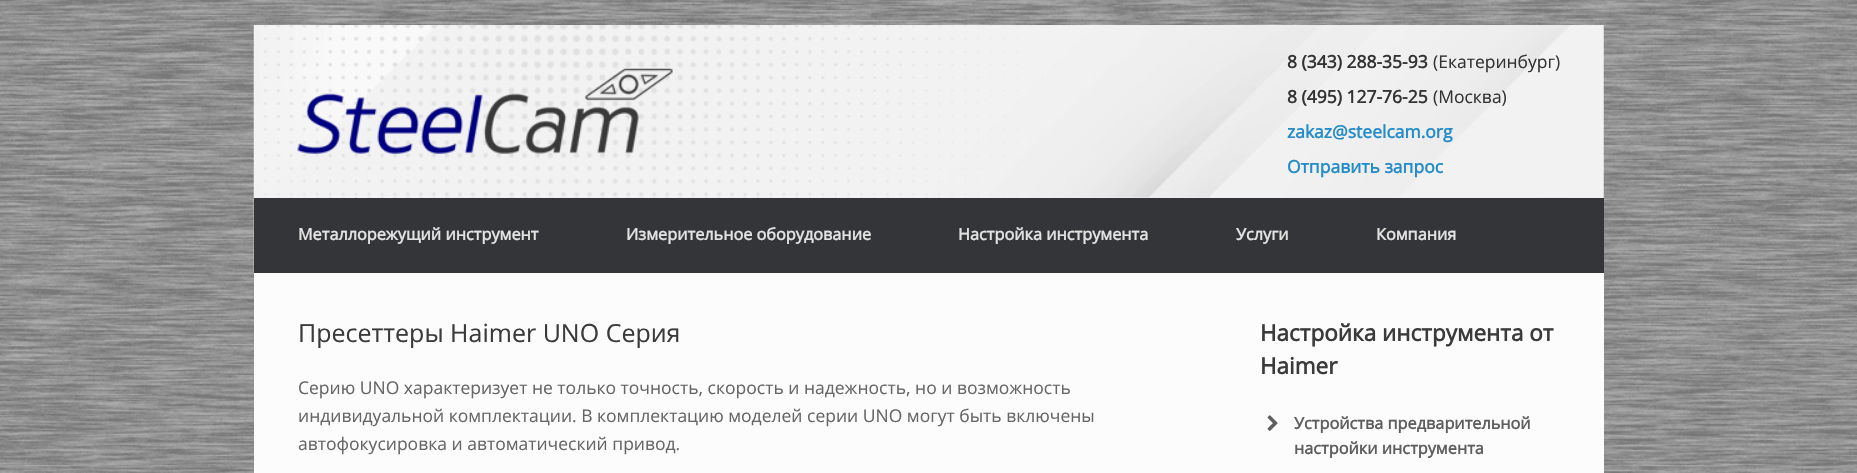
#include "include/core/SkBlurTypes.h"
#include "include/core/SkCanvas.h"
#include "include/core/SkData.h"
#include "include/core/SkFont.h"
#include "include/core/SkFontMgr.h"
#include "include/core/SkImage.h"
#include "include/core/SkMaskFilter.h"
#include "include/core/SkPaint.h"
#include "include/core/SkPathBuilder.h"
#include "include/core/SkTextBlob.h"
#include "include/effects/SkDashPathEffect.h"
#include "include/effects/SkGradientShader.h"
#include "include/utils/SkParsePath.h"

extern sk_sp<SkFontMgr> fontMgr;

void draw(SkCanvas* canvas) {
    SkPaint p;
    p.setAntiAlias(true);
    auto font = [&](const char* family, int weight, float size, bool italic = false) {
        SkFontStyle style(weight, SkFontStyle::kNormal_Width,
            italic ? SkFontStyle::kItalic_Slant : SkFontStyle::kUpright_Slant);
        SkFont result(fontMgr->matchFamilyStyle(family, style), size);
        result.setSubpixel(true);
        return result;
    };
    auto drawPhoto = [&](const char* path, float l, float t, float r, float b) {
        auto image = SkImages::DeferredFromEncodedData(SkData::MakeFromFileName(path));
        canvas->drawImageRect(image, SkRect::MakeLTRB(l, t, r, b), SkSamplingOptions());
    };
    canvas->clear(0xFFFFFFFF);
    drawPhoto("media/1.png", 0, 0, 1857, 473);
    drawPhoto("media/2.png", 253, 25, 1604, 273);
    drawPhoto("media/3.png", 297, 68, 673, 154);
    auto font1 = font("Open Sans", 700, 17.5f);
    p.setColor(0xFF333333);
    canvas->drawString("8 (343) 288-35-93", 1287, 68, font1, p);
    auto font2 = font("Open Sans", 400, 17.5f);
    canvas->drawString("(Екатеринбург)", 1433, 68, font2, p);
    canvas->drawString("8 (495) 127-76-25", 1287, 103, font1, p);
    canvas->drawString("(Москва)", 1433, 103, font2, p);
    p.setColor(0xFF248CC8);
    canvas->drawString("zakaz@steelcam.org", 1287, 138, font1, p);
    canvas->drawString("Отправить запрос", 1287, 173, font1, p);
    p.setColor(0xFF343538);
    canvas->drawRect(SkRect::MakeLTRB(254, 198, 1604, 273), p);
    auto font3 = font("Open Sans", 700, 16.25f);
    p.setColor(0xFFE2E2E2);
    {
        const struct { const char* s; float x, y; } items[] = {
            {"Металлорежущий инструмент", 298, 240},
            {"Измерительное оборудование", 626, 240},
            {"Настройка инструмента", 958, 240},
            {"Услуги", 1236, 240},
            {"Компания", 1376, 240},
        };
        for (auto [s, x, y] : items) {
            canvas->drawString(s, x, y, font3, p);
        }
    }
    p.setColor(0xFFFCFCFC);
    canvas->drawRect(SkRect::MakeLTRB(254, 273, 1604, 473), p);
    auto font4 = font("Open Sans", 400, 25);
    p.setColor(0xFF3B3B3B);
    canvas->drawString("Пресеттеры Haimer UNO Серия", 298, 342, font4, p);
    p.setColor(0xFF666666);
    {
        const struct { const char* s; float x, y; } items[] = {
            {"Серию UNO характеризует не только точность, скорость и надежность, но и возможность", 298, 394},
            {"индивидуальной комплектации. В комплектацию моделей серии UNO могут быть включены", 298, 422},
            {"автофокусировка и автоматический привод.", 298, 450},
        };
        for (auto [s, x, y] : items) {
            canvas->drawString(s, x, y, font2, p);
        }
    }
    auto font5 = font("Open Sans", 700, 22.5f);
    p.setColor(0xFF3B3B3B);
    canvas->drawString("Настройка инструмента от", 1260, 341, font5, p);
    canvas->drawString("Haimer", 1260, 374, font5, p);
    drawPhoto("media/4.png", 1267, 415, 1278, 431);
    p.setColor(0xFF5E5E5E);
    canvas->drawString("Устройства предварительной", 1294, 429, font3, p);
    canvas->drawString("настройки инструмента", 1294, 454, font3, p);
}
